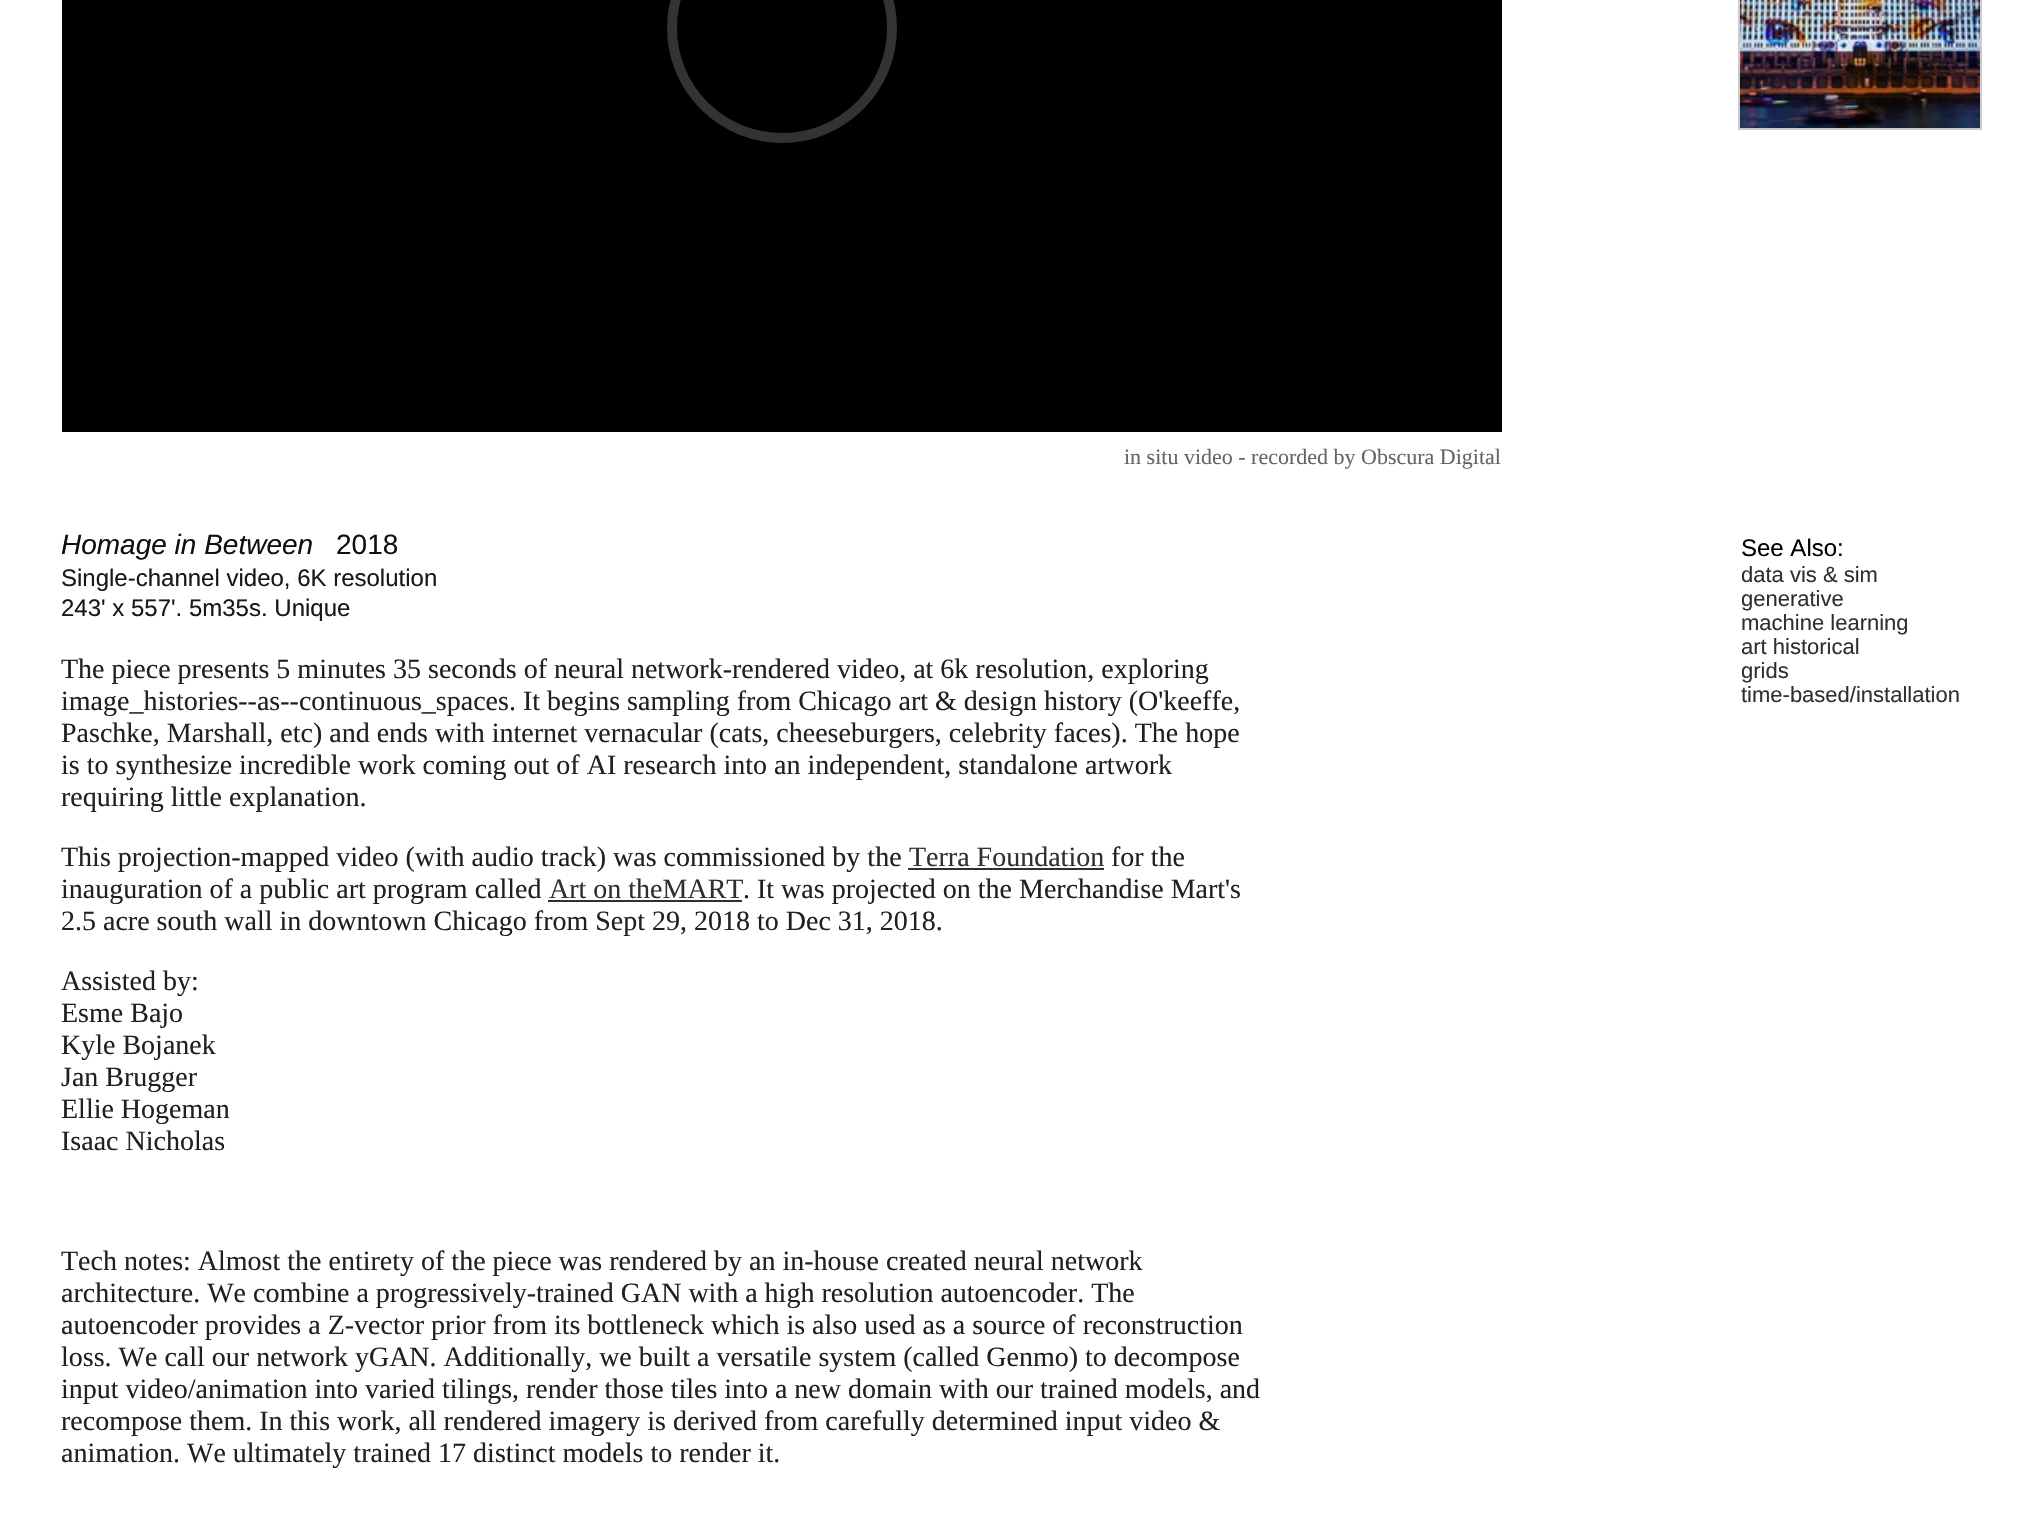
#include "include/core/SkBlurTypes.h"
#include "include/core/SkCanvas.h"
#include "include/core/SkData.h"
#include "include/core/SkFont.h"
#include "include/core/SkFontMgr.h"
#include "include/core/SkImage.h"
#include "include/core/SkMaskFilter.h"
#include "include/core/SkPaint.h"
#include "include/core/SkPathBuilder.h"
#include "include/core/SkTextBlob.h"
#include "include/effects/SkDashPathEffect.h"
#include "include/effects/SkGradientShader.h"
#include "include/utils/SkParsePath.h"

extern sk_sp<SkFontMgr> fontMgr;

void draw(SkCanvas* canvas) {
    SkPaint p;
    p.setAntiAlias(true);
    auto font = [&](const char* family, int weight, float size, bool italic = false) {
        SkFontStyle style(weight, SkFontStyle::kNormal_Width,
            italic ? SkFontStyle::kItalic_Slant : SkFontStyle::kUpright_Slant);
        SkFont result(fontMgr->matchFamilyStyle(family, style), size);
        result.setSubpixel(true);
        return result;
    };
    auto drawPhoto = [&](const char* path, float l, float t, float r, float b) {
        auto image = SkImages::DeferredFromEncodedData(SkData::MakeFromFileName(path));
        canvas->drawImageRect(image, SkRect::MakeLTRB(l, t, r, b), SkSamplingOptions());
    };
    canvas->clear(0xFFFFFFFF);
    p.setStyle(SkPaint::kStroke_Style);
    p.setStrokeWidth(2);
    p.setColor(0xFFCCCCCC);
    canvas->drawRect(SkRect::MakeLTRB(1739, -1, 1981, 129), p);
    drawPhoto("media/1.png", 1740, 0, 1980, 128);
    drawPhoto("media/2.png", 62, 0, 1502, 432);
    auto font1 = font("Liberation Serif", 400, 22);
    p.setStyle(SkPaint::kFill_Style);
    p.setColor(0xFF646464);
    canvas->drawString("in situ video - recorded by Obscura Digital", 1124, 464, font1, p);
    auto font2 = font("Liberation Sans", 400, 28, true);
    p.setColor(0xFF101010);
    canvas->drawString("Homage in Between", 61, 554, font2, p);
    auto font3 = font("Liberation Sans", 400, 28);
    canvas->drawString("2018", 336, 554, font3, p);
    auto font4 = font("Liberation Sans", 400, 24);
    p.setColor(0xFF181818);
    canvas->drawString("Single-channel video, 6K resolution", 61, 586, font4, p);
    canvas->drawString("243' x 557'. 5m35s. Unique", 61, 616, font4, p);
    auto font5 = font("Liberation Serif", 400, 28);
    p.setColor(0xFF202020);
    {
        const struct { const char* s; float x, y; } items[] = {
            {"The piece presents 5 minutes 35 seconds of neural network-rendered video, at 6k resolution, exploring", 61, 678},
            {"image_histories--as--continuous_spaces. It begins sampling from Chicago art & design history (O'keeffe,", 61, 710},
            {"Paschke, Marshall, etc) and ends with internet vernacular (cats, cheeseburgers, celebrity faces). The hope", 61, 742},
            {"is to synthesize incredible work coming out of AI research into an independent, standalone artwork", 61, 774},
            {"requiring little explanation.", 61, 806},
            {"This projection-mapped video (with audio track) was commissioned by the", 61, 866},
        };
        for (auto [s, x, y] : items) {
            canvas->drawString(s, x, y, font5, p);
        }
    }
    p.setColor(0xFF303030);
    canvas->drawString("Terra Foundation", 909, 866, font5, p);
    canvas->drawRect(SkRect::MakeLTRB(908, 868, 1104, 870), p);
    p.setColor(0xFF202020);
    canvas->drawString("for the", 1111, 866, font5, p);
    canvas->drawString("inauguration of a public art program called", 61, 898, font5, p);
    p.setColor(0xFF303030);
    canvas->drawString("Art on theMART", 549, 898, font5, p);
    canvas->drawRect(SkRect::MakeLTRB(548, 900, 742, 902), p);
    p.setColor(0xFF202020);
    {
        const struct { const char* s; float x, y; } items[] = {
            {". It was projected on the Merchandise Mart's", 743, 898},
            {"2.5 acre south wall in downtown Chicago from Sept 29, 2018 to Dec 31, 2018.", 61, 930},
            {"Assisted by:", 61, 990},
            {"Esme Bajo", 61, 1022},
            {"Kyle Bojanek", 61, 1054},
            {"Jan Brugger", 61, 1086},
            {"Ellie Hogeman", 61, 1118},
            {"Isaac Nicholas", 61, 1150},
            {"Tech notes: Almost the entirety of the piece was rendered by an in-house created neural network", 61, 1270},
            {"architecture. We combine a progressively-trained GAN with a high resolution autoencoder. The", 61, 1302},
            {"autoencoder provides a Z-vector prior from its bottleneck which is also used as a source of reconstruction", 61, 1334},
            {"loss. We call our network yGAN. Additionally, we built a versatile system (called Genmo) to decompose", 61, 1366},
            {"input video/animation into varied tilings, render those tiles into a new domain with our trained models, and", 61, 1398},
            {"recompose them. In this work, all rendered imagery is derived from carefully determined input video &", 61, 1430},
            {"animation. We ultimately trained 17 distinct models to render it.", 61, 1462},
        };
        for (auto [s, x, y] : items) {
            canvas->drawString(s, x, y, font5, p);
        }
    }
    p.setColor(0xFF000000);
    canvas->drawString("See Also:", 1741, 556, font4, p);
    auto font6 = font("Liberation Sans", 400, 22);
    p.setColor(0xFF303030);
    {
        const struct { const char* s; float x, y; } items[] = {
            {"data vis & sim", 1741, 582},
            {"generative", 1741, 606},
            {"machine learning", 1741, 630},
            {"art historical", 1741, 654},
            {"grids", 1741, 678},
            {"time-based/installation", 1741, 702},
        };
        for (auto [s, x, y] : items) {
            canvas->drawString(s, x, y, font6, p);
        }
    }
}
